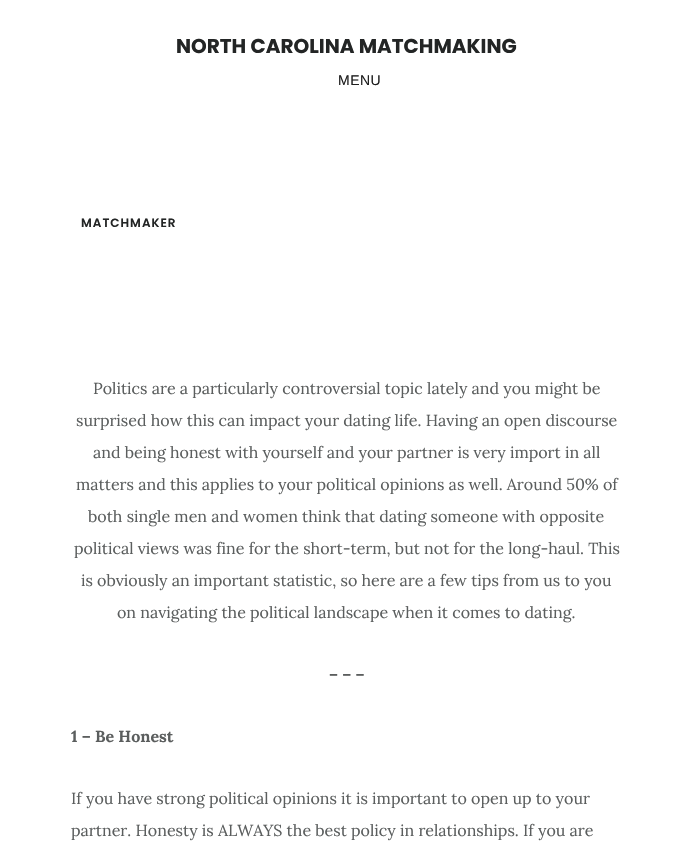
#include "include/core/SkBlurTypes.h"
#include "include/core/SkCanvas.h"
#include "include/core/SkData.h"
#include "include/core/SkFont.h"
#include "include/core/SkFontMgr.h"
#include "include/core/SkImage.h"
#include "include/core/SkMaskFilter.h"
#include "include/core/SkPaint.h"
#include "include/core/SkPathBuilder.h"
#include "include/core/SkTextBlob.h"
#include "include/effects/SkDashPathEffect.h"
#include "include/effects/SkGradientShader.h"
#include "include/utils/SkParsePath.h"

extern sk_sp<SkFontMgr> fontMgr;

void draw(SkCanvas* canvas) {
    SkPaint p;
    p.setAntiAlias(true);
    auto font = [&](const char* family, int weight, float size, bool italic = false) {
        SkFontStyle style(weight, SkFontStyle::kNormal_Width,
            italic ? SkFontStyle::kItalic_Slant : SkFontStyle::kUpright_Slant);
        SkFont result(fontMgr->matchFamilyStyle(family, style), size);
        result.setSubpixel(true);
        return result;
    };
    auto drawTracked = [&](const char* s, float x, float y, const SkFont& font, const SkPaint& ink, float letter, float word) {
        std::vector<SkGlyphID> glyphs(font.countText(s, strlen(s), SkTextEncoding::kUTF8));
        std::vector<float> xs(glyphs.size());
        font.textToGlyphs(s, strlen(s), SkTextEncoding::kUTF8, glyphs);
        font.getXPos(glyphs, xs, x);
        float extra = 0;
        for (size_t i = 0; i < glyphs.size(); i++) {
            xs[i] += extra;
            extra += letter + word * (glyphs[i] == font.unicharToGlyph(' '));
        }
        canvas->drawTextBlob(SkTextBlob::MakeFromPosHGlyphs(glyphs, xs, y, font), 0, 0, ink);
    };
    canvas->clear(0xFFFFFFFF);
    auto font1 = font("Poppins", 700, 20);
    p.setColor(0xFF232525);
    canvas->drawString("NORTH CAROLINA MATCHMAKING", 176, 53, font1, p);
    auto font2 = font("Liberation Sans", 400, 14);
    p.setColor(0xFF1E1E1E);
    drawTracked("MENU", 338, 85, font2, p, 0.5f, 0);
    auto font3 = font("Poppins", 600, 12);
    p.setColor(0xFF232525);
    drawTracked("MATCHMAKER", 81, 227, font3, p, 1, 0);
    auto font4 = font("Lora", 400, 16);
    p.setColor(0xFF5B5E5E);
    {
        const struct { const char* s; float x, y; } items[] = {
            {"Politics are a particularly controversial topic lately and you might be", 93, 394},
            {"surprised how this can impact your dating life. Having an open discourse", 76, 426},
            {"and being honest with yourself and your partner is very import in all", 93, 458},
            {"matters and this applies to your political opinions as well. Around 50% of", 76, 490},
            {"both single men and women think that dating someone with opposite", 88, 522},
            {"political views was fine for the short-term, but not for the long-haul. This", 74, 554},
            {"is obviously an important statistic, so here are a few tips from us to you", 81, 586},
            {"on navigating the political landscape when it comes to dating.", 117, 618},
        };
        for (auto [s, x, y] : items) {
            canvas->drawString(s, x, y, font4, p);
        }
    }
    auto font5 = font("Lora", 700, 16);
    canvas->drawString("– – –", 329, 680, font5, p);
    canvas->drawString("1 – Be Honest", 71, 742, font5, p);
    canvas->drawString("If you have strong political opinions it is important to open up to your", 71, 804, font4, p);
    canvas->drawString("partner. Honesty is ALWAYS the best policy in relationships. If you are", 71, 836, font4, p);
}
